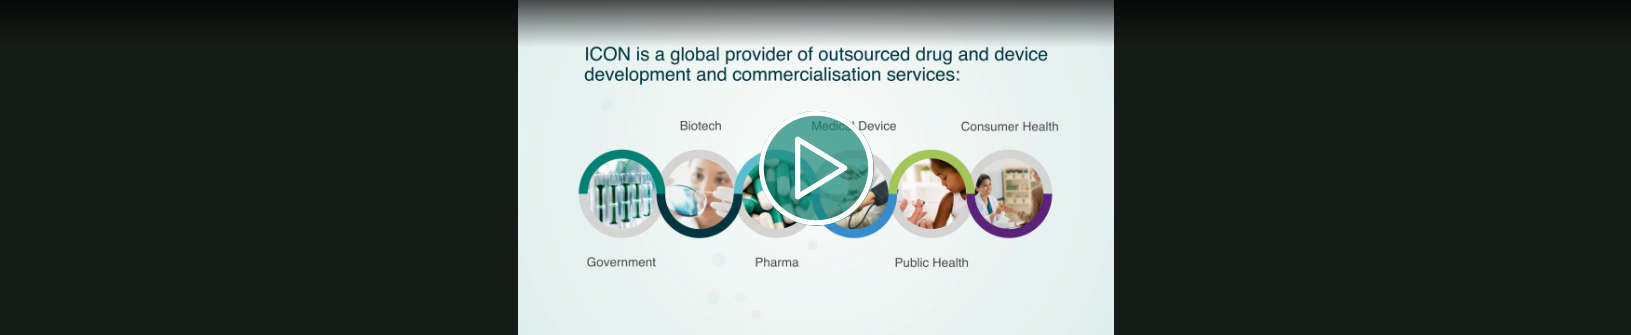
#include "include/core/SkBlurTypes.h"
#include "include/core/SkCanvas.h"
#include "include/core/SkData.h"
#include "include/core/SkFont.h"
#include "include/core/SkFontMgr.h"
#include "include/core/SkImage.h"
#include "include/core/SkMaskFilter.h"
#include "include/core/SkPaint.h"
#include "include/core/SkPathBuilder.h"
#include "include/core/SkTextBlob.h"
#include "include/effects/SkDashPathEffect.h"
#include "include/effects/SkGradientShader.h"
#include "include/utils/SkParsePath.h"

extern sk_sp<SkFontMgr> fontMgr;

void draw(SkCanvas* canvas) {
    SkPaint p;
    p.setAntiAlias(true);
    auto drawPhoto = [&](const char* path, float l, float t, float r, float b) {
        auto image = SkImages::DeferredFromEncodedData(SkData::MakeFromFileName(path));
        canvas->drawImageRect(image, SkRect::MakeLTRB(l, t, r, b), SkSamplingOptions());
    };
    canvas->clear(0xFF151B17);
    drawPhoto("media/1.png", 518, 0, 1114, 335);
    {
        const SkColor colors[] = {0xE6000000, 0xCC000000, 0xB3000000, 0x00000000};
        const float stops[] = {0, 0, 0, 1};
        const SkPoint ends[] = {{816, 0}, {816, 47}};
        p.setShader(SkGradientShader::MakeLinear(ends, colors, stops, 4, SkTileMode::kClamp));
        p.setAlpha(255);
    }
    canvas->drawRect(SkRect::MakeLTRB(0, 0, 1631, 46), p);
    p.setShader(nullptr);
    p.setColor(0xB3128475);
    canvas->drawCircle(816.5f, 168.5f, 57.5f, p);
    drawPhoto("media/2.png", 759, 111, 873, 225);
}
